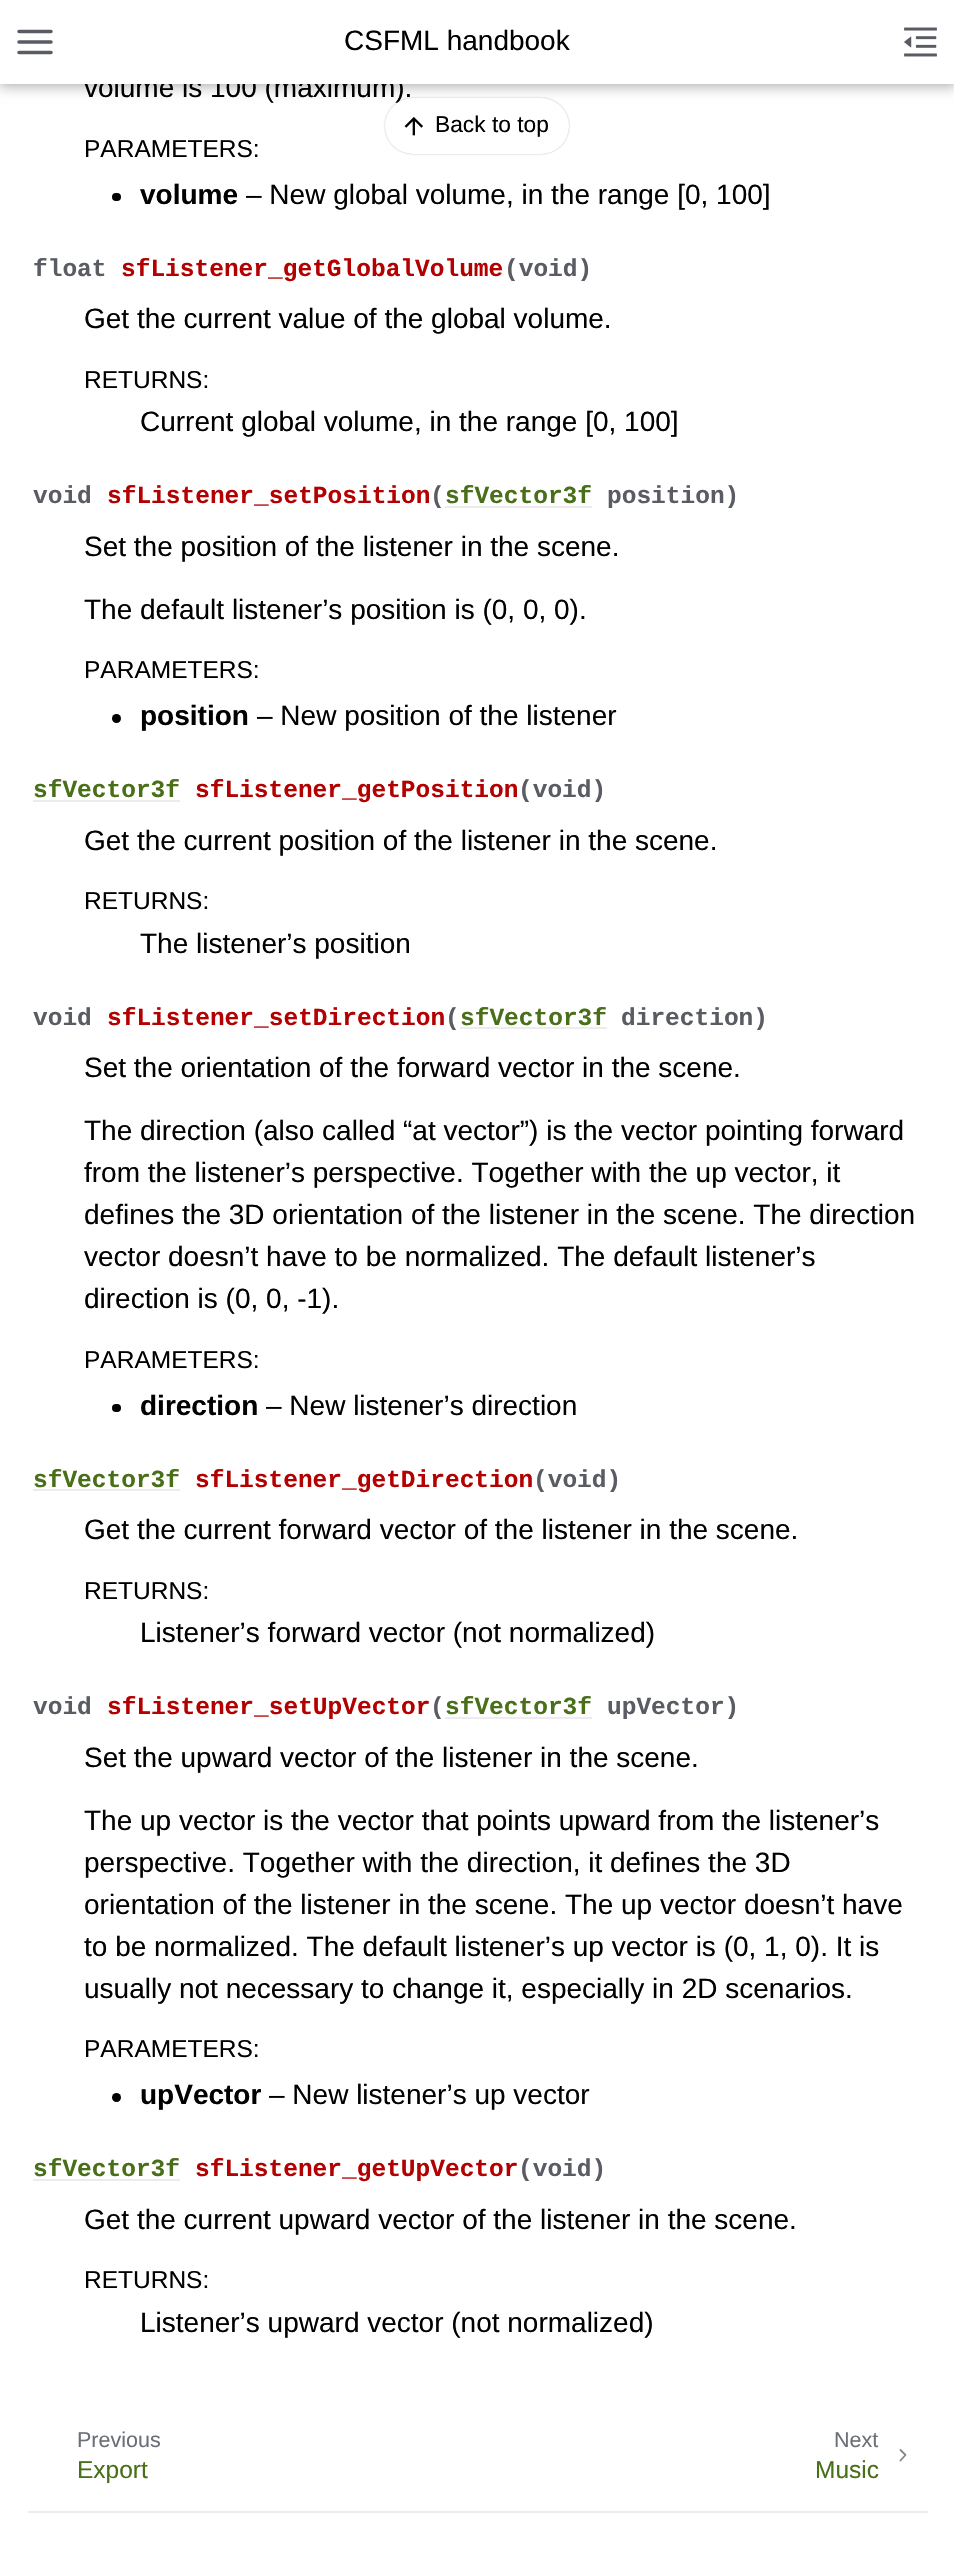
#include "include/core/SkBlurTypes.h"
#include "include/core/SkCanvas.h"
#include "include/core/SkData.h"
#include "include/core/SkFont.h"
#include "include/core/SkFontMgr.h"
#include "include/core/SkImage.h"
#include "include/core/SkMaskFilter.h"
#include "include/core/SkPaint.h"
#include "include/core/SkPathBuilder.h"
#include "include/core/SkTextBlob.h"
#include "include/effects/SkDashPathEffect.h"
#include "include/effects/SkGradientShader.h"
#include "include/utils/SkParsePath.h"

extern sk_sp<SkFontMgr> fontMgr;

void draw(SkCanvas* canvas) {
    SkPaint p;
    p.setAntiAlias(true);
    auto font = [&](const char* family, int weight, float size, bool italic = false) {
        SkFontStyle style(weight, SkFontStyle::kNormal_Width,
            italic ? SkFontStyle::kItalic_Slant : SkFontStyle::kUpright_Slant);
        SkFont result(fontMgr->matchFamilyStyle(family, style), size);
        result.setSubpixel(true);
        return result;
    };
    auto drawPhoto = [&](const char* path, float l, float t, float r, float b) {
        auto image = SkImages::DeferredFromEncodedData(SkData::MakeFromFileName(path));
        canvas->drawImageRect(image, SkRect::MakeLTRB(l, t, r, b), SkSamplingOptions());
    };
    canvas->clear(0xFFFFFFFF);
    p.setColor(0x33000000);
    p.setMaskFilter(SkMaskFilter::MakeBlur(kNormal_SkBlurStyle, 5.5f));
    canvas->drawRect(SkRect::MakeLTRB(0, 5, 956, 89), p);
    p.setMaskFilter(nullptr);
    p.setColor(0x1A000000);
    p.setMaskFilter(SkMaskFilter::MakeBlur(kNormal_SkBlurStyle, 3));
    canvas->drawRect(SkRect::MakeLTRB(0, 0, 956, 84), p);
    p.setMaskFilter(nullptr);
    auto font1 = font("Liberation Sans", 400, 28);
    p.setColor(0xFF000000);
    canvas->drawString("volume is 100 (maximum).", 84, 97, font1, p);
    p.setColor(0xFFFFFFFF);
    canvas->drawRect(SkRect::MakeLTRB(0, 0, 954, 84), p);
    p.setStyle(SkPaint::kStroke_Style);
    p.setStrokeWidth(3.5f);
    p.setStrokeCap(SkPaint::kRound_Cap);
    p.setStrokeJoin(SkPaint::kRound_Join);
    p.setColor(0xFF5A5C63);
    canvas->drawPath(SkPathBuilder().moveTo(19, 42).lineTo(51, 42).moveTo(19, 31.5f).lineTo(51, 31.5f).moveTo(19, 52.5f).lineTo(51, 52.5f).detach(), p);
    p.setStyle(SkPaint::kFill_Style);
    p.setColor(0xFF000000);
    canvas->drawString("CSFML handbook", 344, 50, font1, p);
    drawPhoto("media/1.png", 904, 27, 937, 57);
    auto font2 = font("Liberation Sans", 400, 24.5f);
    canvas->drawString("PARAMETERS:", 84, 157, font2, p);
    canvas->drawRoundRect(SkRect::MakeLTRB(112, 193, 121, 201), 4, 4, p);
    auto font3 = font("Liberation Sans", 700, 28);
    canvas->drawString("volume", 140, 204, font3, p);
    canvas->drawString("– New global volume, in the range [0, 100]", 246, 204, font1, p);
    auto font4 = font("Liberation Mono", 700, 24.5f);
    p.setColor(0xFF5A5C63);
    canvas->drawString("float", 33, 276, font4, p);
    p.setColor(0xFFB30000);
    canvas->drawString("sfListener_getGlobalVolume", 121, 276, font4, p);
    p.setColor(0xFF5A5C63);
    canvas->drawString("(void)", 504, 276, font4, p);
    p.setColor(0xFF000000);
    canvas->drawString("Get the current value of the global volume.", 84, 328, font1, p);
    canvas->drawString("RETURNS:", 84, 388, font2, p);
    canvas->drawString("Current global volume, in the range [0, 100]", 140, 431, font1, p);
    p.setColor(0xFF5A5C63);
    canvas->drawString("void", 33, 503, font4, p);
    p.setColor(0xFFB30000);
    canvas->drawString("sfListener_setPosition", 107, 503, font4, p);
    p.setColor(0xFF5A5C63);
    canvas->drawString("(", 430, 503, font4, p);
    p.setColor(0xFF496F19);
    canvas->drawString("sfVector3f", 445, 503, font4, p);
    p.setColor(0xFFEEEBEE);
    canvas->drawRect(SkRect::MakeLTRB(445, 506, 592, 508), p);
    p.setColor(0xFF5A5C63);
    canvas->drawString("position)", 607, 503, font4, p);
    p.setColor(0xFF000000);
    canvas->drawString("Set the position of the listener in the scene.", 84, 556, font1, p);
    canvas->drawString("The default listener’s position is (0, 0, 0).", 84, 619, font1, p);
    canvas->drawString("PARAMETERS:", 84, 678, font2, p);
    canvas->drawCircle(116.5f, 718.5f, 4.5f, p);
    canvas->drawString("position", 140, 725, font3, p);
    canvas->drawString("– New position of the listener", 257, 725, font1, p);
    p.setColor(0xFF496F19);
    canvas->drawString("sfVector3f", 33, 797, font4, p);
    p.setColor(0xFFEEEBEE);
    canvas->drawRect(SkRect::MakeLTRB(33, 800, 180, 802), p);
    p.setColor(0xFFB30000);
    canvas->drawString("sfListener_getPosition", 195, 797, font4, p);
    p.setColor(0xFF5A5C63);
    canvas->drawString("(void)", 518, 797, font4, p);
    p.setColor(0xFF000000);
    canvas->drawString("Get the current position of the listener in the scene.", 84, 850, font1, p);
    canvas->drawString("RETURNS:", 84, 909, font2, p);
    canvas->drawString("The listener’s position", 140, 953, font1, p);
    p.setColor(0xFF5A5C63);
    canvas->drawString("void", 33, 1025, font4, p);
    p.setColor(0xFFB30000);
    canvas->drawString("sfListener_setDirection", 107, 1025, font4, p);
    p.setColor(0xFF5A5C63);
    canvas->drawString("(", 445, 1025, font4, p);
    p.setColor(0xFF496F19);
    canvas->drawString("sfVector3f", 460, 1025, font4, p);
    p.setColor(0xFFEEEBEE);
    canvas->drawRect(SkRect::MakeLTRB(460, 1027, 607, 1029), p);
    p.setColor(0xFF5A5C63);
    canvas->drawString("direction)", 621, 1025, font4, p);
    p.setColor(0xFF000000);
    {
        const struct { const char* s; float x, y; } items[] = {
            {"Set the orientation of the forward vector in the scene.", 84, 1077},
            {"The direction (also called “at vector”) is the vector pointing forward", 84, 1140},
            {"from the listener’s perspective. Together with the up vector, it", 84, 1182},
            {"defines the 3D orientation of the listener in the scene. The direction", 84, 1224},
            {"vector doesn’t have to be normalized. The default listener’s", 84, 1266},
            {"direction is (0, 0, -1).", 84, 1308},
        };
        for (auto [s, x, y] : items) {
            canvas->drawString(s, x, y, font1, p);
        }
    }
    canvas->drawString("PARAMETERS:", 84, 1368, font2, p);
    canvas->drawRoundRect(SkRect::MakeLTRB(112, 1404, 121, 1412), 4, 4, p);
    canvas->drawString("direction", 140, 1415, font3, p);
    canvas->drawString("– New listener’s direction", 266, 1415, font1, p);
    p.setColor(0xFF496F19);
    canvas->drawString("sfVector3f", 33, 1487, font4, p);
    p.setColor(0xFFEEEBEE);
    canvas->drawRect(SkRect::MakeLTRB(33, 1489, 180, 1491), p);
    p.setColor(0xFFB30000);
    canvas->drawString("sfListener_getDirection", 195, 1487, font4, p);
    p.setColor(0xFF5A5C63);
    canvas->drawString("(void)", 533, 1487, font4, p);
    p.setColor(0xFF000000);
    canvas->drawString("Get the current forward vector of the listener in the scene.", 84, 1539, font1, p);
    canvas->drawString("RETURNS:", 84, 1599, font2, p);
    canvas->drawString("Listener’s forward vector (not normalized)", 140, 1642, font1, p);
    p.setColor(0xFF5A5C63);
    canvas->drawString("void", 33, 1714, font4, p);
    p.setColor(0xFFB30000);
    canvas->drawString("sfListener_setUpVector", 107, 1714, font4, p);
    p.setColor(0xFF5A5C63);
    canvas->drawString("(", 430, 1714, font4, p);
    p.setColor(0xFF496F19);
    canvas->drawString("sfVector3f", 445, 1714, font4, p);
    p.setColor(0xFFEEEBEE);
    canvas->drawRect(SkRect::MakeLTRB(445, 1717, 592, 1719), p);
    p.setColor(0xFF5A5C63);
    canvas->drawString("upVector)", 607, 1714, font4, p);
    p.setColor(0xFF000000);
    {
        const struct { const char* s; float x, y; } items[] = {
            {"Set the upward vector of the listener in the scene.", 84, 1767},
            {"The up vector is the vector that points upward from the listener’s", 84, 1830},
            {"perspective. Together with the direction, it defines the 3D", 84, 1872},
            {"orientation of the listener in the scene. The up vector doesn’t have", 84, 1914},
            {"to be normalized. The default listener’s up vector is (0, 1, 0). It is", 84, 1956},
            {"usually not necessary to change it, especially in 2D scenarios.", 84, 1998},
        };
        for (auto [s, x, y] : items) {
            canvas->drawString(s, x, y, font1, p);
        }
    }
    canvas->drawString("PARAMETERS:", 84, 2057, font2, p);
    canvas->drawCircle(116.5f, 2097.5f, 4.5f, p);
    canvas->drawString("upVector", 140, 2104, font3, p);
    canvas->drawString("– New listener’s up vector", 269, 2104, font1, p);
    p.setColor(0xFF496F19);
    canvas->drawString("sfVector3f", 33, 2176, font4, p);
    p.setColor(0xFFEEEBEE);
    canvas->drawRect(SkRect::MakeLTRB(33, 2179, 180, 2181), p);
    p.setColor(0xFFB30000);
    canvas->drawString("sfListener_getUpVector", 195, 2176, font4, p);
    p.setColor(0xFF5A5C63);
    canvas->drawString("(void)", 518, 2176, font4, p);
    p.setColor(0xFF000000);
    canvas->drawString("Get the current upward vector of the listener in the scene.", 84, 2229, font1, p);
    canvas->drawString("RETURNS:", 84, 2288, font2, p);
    canvas->drawString("Listener’s upward vector (not normalized)", 140, 2332, font1, p);
    p.setColor(0x806B7280);
    p.setMaskFilter(SkMaskFilter::MakeBlur(kNormal_SkBlurStyle, 1));
    canvas->drawRoundRect(SkRect::MakeLTRB(385, 98, 569, 154), 28, 28, p);
    p.setMaskFilter(nullptr);
    p.setColor(0xFFFFFFFF);
    canvas->drawRoundRect(SkRect::MakeLTRB(385, 98, 569, 154), 28, 28, p);
    drawPhoto("media/2.png", 404, 117, 423, 136);
    auto font5 = font("Liberation Sans", 400, 22.75f);
    p.setColor(0xFF000000);
    canvas->drawString("Back to top", 435, 132, font5, p);
    auto font6 = font("Liberation Sans", 400, 21.5f);
    p.setColor(0xFF6B6F76);
    canvas->drawString("Previous", 77, 2447, font6, p);
    p.setColor(0xFF496F19);
    canvas->drawString("Export", 77, 2478, font2, p);
    p.setColor(0xFF6B6F76);
    canvas->drawString("Next", 834, 2447, font6, p);
    p.setColor(0xFF496F19);
    canvas->drawString("Music", 815, 2478, font2, p);
    p.setStyle(SkPaint::kStroke_Style);
    p.setStrokeWidth(1.8f);
    p.setColor(0xFF878787);
    canvas->drawPath(SkPathBuilder().moveTo(900.5f, 2460.5f).lineTo(905.5f, 2455).lineTo(900.5f, 2450).detach(), p);
    p.setStyle(SkPaint::kFill_Style);
    p.setColor(0xFFEEEBEE);
    canvas->drawRect(SkRect::MakeLTRB(28, 2511, 928, 2513), p);
}
